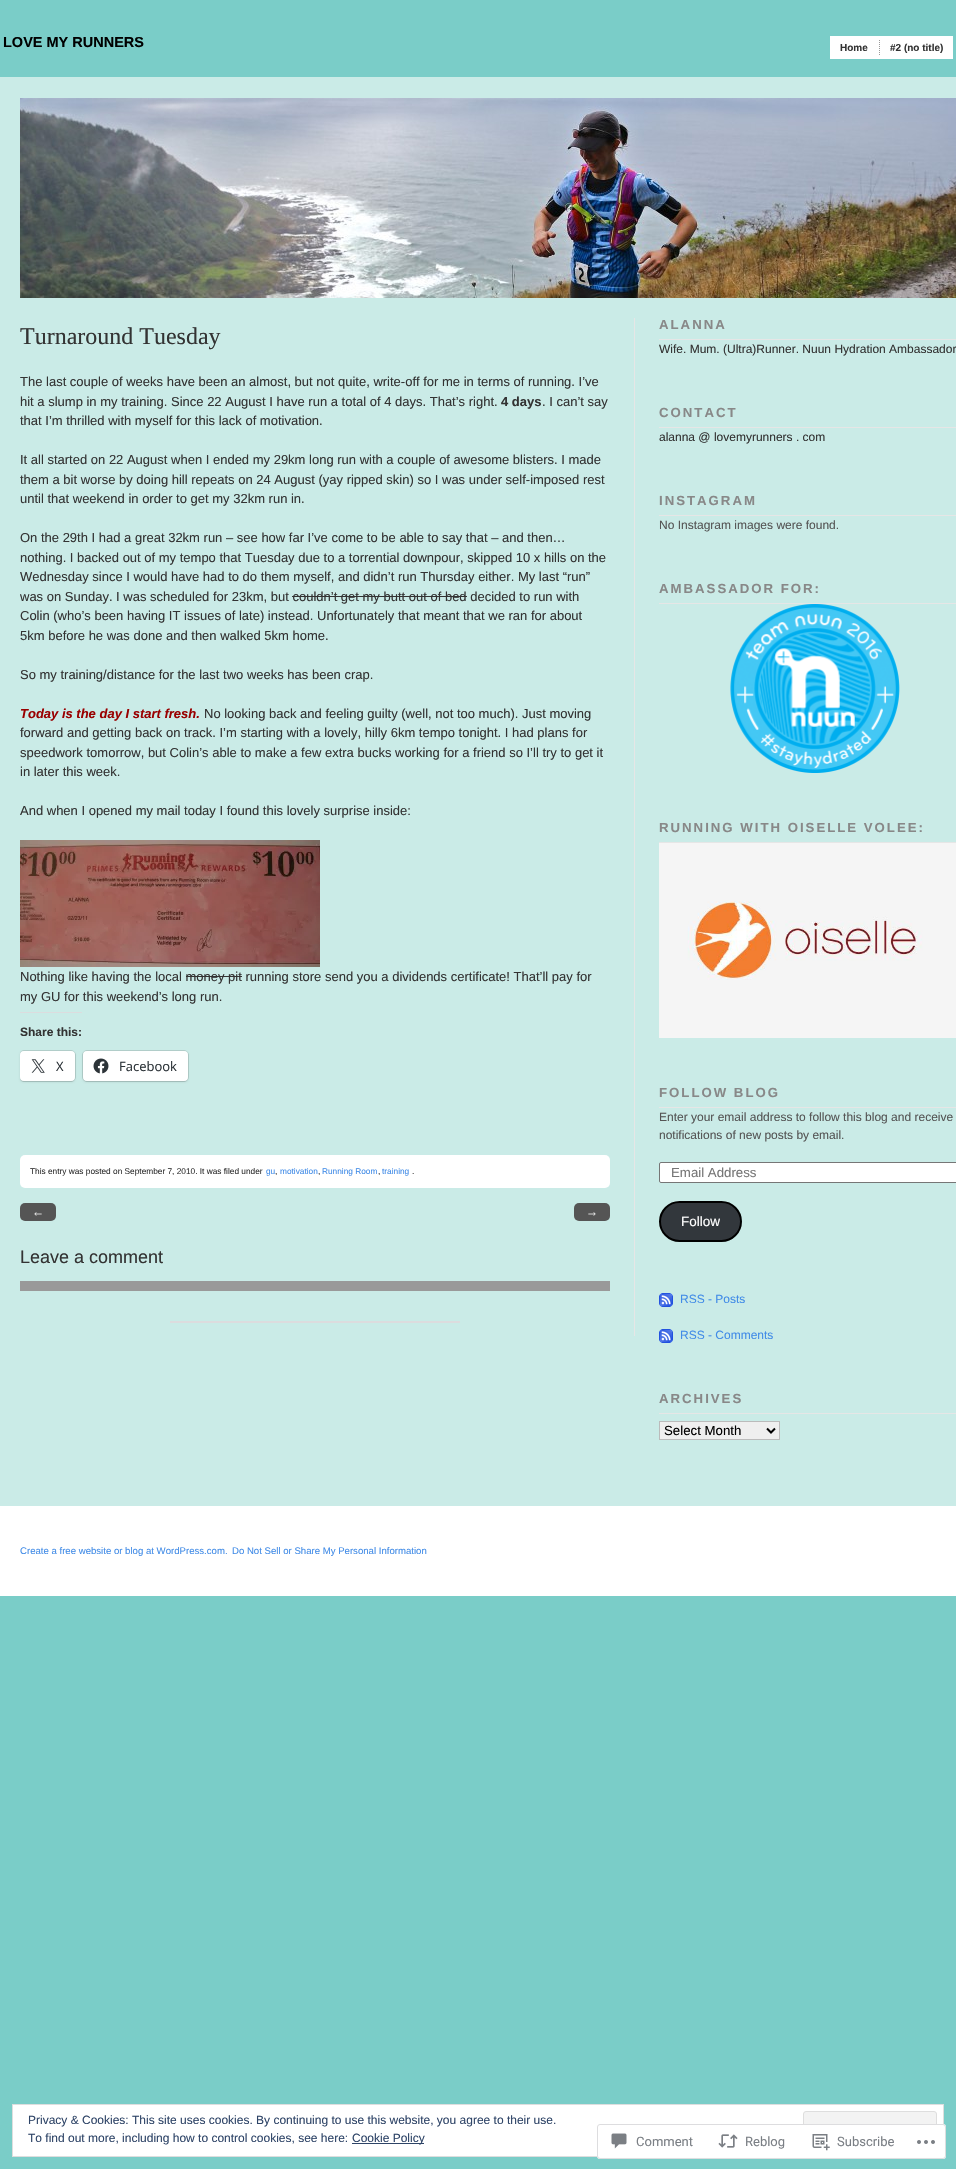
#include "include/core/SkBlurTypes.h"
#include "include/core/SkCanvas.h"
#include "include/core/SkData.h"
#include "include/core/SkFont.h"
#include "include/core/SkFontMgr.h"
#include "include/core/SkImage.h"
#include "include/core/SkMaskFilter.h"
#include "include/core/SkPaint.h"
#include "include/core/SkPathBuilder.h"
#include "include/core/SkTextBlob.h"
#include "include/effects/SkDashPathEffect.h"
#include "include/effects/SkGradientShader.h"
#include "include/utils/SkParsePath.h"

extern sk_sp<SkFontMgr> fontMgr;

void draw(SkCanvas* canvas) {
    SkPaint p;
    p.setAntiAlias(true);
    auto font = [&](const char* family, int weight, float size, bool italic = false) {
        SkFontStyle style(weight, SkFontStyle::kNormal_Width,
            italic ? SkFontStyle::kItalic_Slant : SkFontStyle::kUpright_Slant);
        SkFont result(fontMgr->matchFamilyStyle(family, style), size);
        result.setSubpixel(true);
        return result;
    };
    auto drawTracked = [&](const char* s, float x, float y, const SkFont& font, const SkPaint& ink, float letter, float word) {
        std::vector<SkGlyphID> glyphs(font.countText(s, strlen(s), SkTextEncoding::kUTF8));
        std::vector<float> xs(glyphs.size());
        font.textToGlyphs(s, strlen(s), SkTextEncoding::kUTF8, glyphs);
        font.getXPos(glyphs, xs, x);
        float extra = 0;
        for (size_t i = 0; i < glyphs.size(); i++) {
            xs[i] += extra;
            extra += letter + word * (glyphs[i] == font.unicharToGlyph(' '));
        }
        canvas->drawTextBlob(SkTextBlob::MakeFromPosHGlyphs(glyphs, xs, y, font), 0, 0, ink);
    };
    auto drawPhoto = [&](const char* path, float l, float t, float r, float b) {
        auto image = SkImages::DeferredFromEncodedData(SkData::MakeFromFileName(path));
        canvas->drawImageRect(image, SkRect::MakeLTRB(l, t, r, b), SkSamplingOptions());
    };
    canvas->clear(0xFF7ACDC8);
    auto font1 = font("Liberation Sans", 700, 14.5f);
    p.setColor(0xFF000000);
    canvas->drawString("LOVE MY RUNNERS", 3, 47, font1, p);
    p.setColor(0xFFFFFFFF);
    canvas->drawRect(SkRect::MakeLTRB(830, 36, 953, 59), p);
    p.setStyle(SkPaint::kStroke_Style);
    p.setStrokeWidth(1);
    p.setColor(0xFF999999);
    p.setPathEffect(SkDashPathEffect::Make({{1, 1}}, 0));
    canvas->drawPath(SkPathBuilder().moveTo(879.5f, 40).lineTo(879.5f, 55).detach(), p);
    p.setPathEffect(nullptr);
    auto font2 = font("Liberation Sans", 700, 10);
    p.setStyle(SkPaint::kFill_Style);
    p.setColor(0xFF333333);
    canvas->drawString("Home", 840, 51, font2, p);
    canvas->drawString("#2 (no title)", 890, 51, font2, p);
    p.setColor(0xFFCAEBE7);
    canvas->drawRect(SkRect::MakeLTRB(0, 77, 956, 1506), p);
    drawPhoto("media/1.png", 20, 98, 956, 298);
    p.setColor(0xFFE6E6E6);
    canvas->drawRect(SkRect::MakeLTRB(634, 318, 635, 1336), p);
    auto font3 = font("Liberation Serif", 400, 24);
    p.setColor(0xFF333333);
    canvas->drawString("Turnaround Tuesday", 20, 344, font3, p);
    auto font4 = font("Liberation Sans", 400, 13);
    canvas->drawString("The last couple of weeks have been an almost, but not quite, write-off for me in terms of running. I’ve", 20, 386, font4, p);
    canvas->drawString("hit a slump in my training. Since 22 August I have run a total of 4 days. That’s right.", 20, 406, font4, p);
    auto font5 = font("Liberation Sans", 700, 13);
    canvas->drawString("4 days", 501, 406, font5, p);
    {
        const struct { const char* s; float x, y; } items[] = {
            {". I can’t say", 542, 406},
            {"that I’m thrilled with myself for this lack of motivation.", 20, 425},
            {"It all started on 22 August when I ended my 29km long run with a couple of awesome blisters. I made", 20, 464},
            {"them a bit worse by doing hill repeats on 24 August (yay ripped skin) so I was under self-imposed rest", 20, 484},
            {"until that weekend in order to get my 32km run in.", 20, 503},
            {"On the 29th I had a great 32km run – see how far I’ve come to be able to say that – and then…", 20, 542},
            {"nothing. I backed out of my tempo that Tuesday due to a torrential downpour, skipped 10 x hills on the", 20, 562},
            {"Wednesday since I would have had to do them myself, and didn’t run Thursday either. My last “run”", 20, 581},
            {"was on Sunday. I was scheduled for 23km, but couldn’t get my butt out of bed decided to run with", 20, 601},
        };
        for (auto [s, x, y] : items) {
            canvas->drawString(s, x, y, font4, p);
        }
    }
    canvas->drawRect(SkRect::MakeLTRB(292, 596, 467, 597), p);
    {
        const struct { const char* s; float x, y; } items[] = {
            {"Colin (who’s been having IT issues of late) instead. Unfortunately that meant that we ran for about", 20, 620},
            {"5km before he was done and then walked 5km home.", 20, 640},
            {"So my training/distance for the last two weeks has been crap.", 20, 679},
        };
        for (auto [s, x, y] : items) {
            canvas->drawString(s, x, y, font4, p);
        }
    }
    auto font6 = font("Liberation Sans", 700, 13, true);
    p.setColor(0xFF990000);
    canvas->drawString("Today is the day I start fresh.", 20, 718, font6, p);
    p.setColor(0xFF333333);
    {
        const struct { const char* s; float x, y; } items[] = {
            {"No looking back and feeling guilty (well, not too much). Just moving", 204, 718},
            {"forward and getting back on track. I’m starting with a lovely, hilly 6km tempo tonight. I had plans for", 20, 737},
            {"speedwork tomorrow, but Colin’s able to make a few extra bucks working for a friend so I’ll try to get it", 20, 757},
            {"in later this week.", 20, 776},
            {"And when I opened my mail today I found this lovely surprise inside:", 20, 815},
        };
        for (auto [s, x, y] : items) {
            canvas->drawString(s, x, y, font4, p);
        }
    }
    drawPhoto("media/2.png", 20, 840, 320, 967);
    canvas->drawString("Nothing like having the local money pit running store send you a dividends certificate! That’ll pay for", 20, 981, font4, p);
    canvas->drawRect(SkRect::MakeLTRB(186, 976, 242, 977), p);
    canvas->drawString("my GU for this weekend’s long run.", 20, 1001, font4, p);
    p.setColor(0xFFDCDCDE);
    canvas->drawRect(SkRect::MakeLTRB(20, 1012, 82, 1013), p);
    auto font7 = font("Liberation Sans", 700, 12);
    p.setColor(0xFF333333);
    canvas->drawString("Share this:", 20, 1036, font7, p);
    canvas->save();
    canvas->clipRect(SkRect::MakeLTRB(20, 318, 610, 1336));
    p.setStyle(SkPaint::kStroke_Style);
    p.setColor(0xFFB2CFCB);
    canvas->drawRoundRect(SkRect::MakeLTRB(19.5f, 1050.5f, 75.5f, 1081.5f), 4.5f, 4.5f, p);
    canvas->restore();
    p.setStyle(SkPaint::kFill_Style);
    p.setColor(0x1F000000);
    p.setMaskFilter(SkMaskFilter::MakeBlur(kNormal_SkBlurStyle, 1));
    canvas->drawRoundRect(SkRect::MakeLTRB(20, 1052, 75, 1082), 4, 4, p);
    p.setMaskFilter(nullptr);
    p.setColor(0xFFFFFFFF);
    canvas->drawRoundRect(SkRect::MakeLTRB(20, 1051, 75, 1081), 4, 4, p);
    drawPhoto("media/3.png", 31, 1059, 45, 1073);
    auto font8 = font("Open Sans", 400, 13);
    p.setColor(0xFF2C3338);
    canvas->drawString("X", 56, 1071, font8, p);
    p.setStyle(SkPaint::kStroke_Style);
    p.setColor(0xFFB2CFCB);
    canvas->drawRoundRect(SkRect::MakeLTRB(82.5f, 1050.5f, 188.5f, 1081.5f), 4.5f, 4.5f, p);
    p.setStyle(SkPaint::kFill_Style);
    p.setColor(0x1F000000);
    p.setMaskFilter(SkMaskFilter::MakeBlur(kNormal_SkBlurStyle, 1));
    canvas->drawRoundRect(SkRect::MakeLTRB(83, 1052, 188, 1082), 4, 4, p);
    p.setMaskFilter(nullptr);
    p.setColor(0xFFFFFFFF);
    canvas->drawRoundRect(SkRect::MakeLTRB(83, 1051, 188, 1081), 4, 4, p);
    drawPhoto("media/4.png", 93, 1058, 109, 1074);
    p.setColor(0xFF2C3338);
    canvas->drawString("Facebook", 119, 1071, font8, p);
    p.setColor(0xFFFFFFFF);
    canvas->drawRoundRect(SkRect::MakeLTRB(20, 1155, 610, 1188), 5, 5, p);
    auto font9 = font("Liberation Sans", 400, 8.3f);
    p.setColor(0xFF333333);
    canvas->drawString("This entry was posted on September 7, 2010. It was filed under", 30, 1174, font9, p);
    p.setColor(0xFF428CE7);
    canvas->drawString("gu", 266, 1174, font9, p);
    p.setColor(0xFF333333);
    canvas->drawString(",", 275, 1174, font9, p);
    p.setColor(0xFF428CE7);
    canvas->drawString("motivation", 280, 1174, font9, p);
    p.setColor(0xFF333333);
    canvas->drawString(",", 318, 1174, font9, p);
    p.setColor(0xFF428CE7);
    canvas->drawString("Running Room", 322, 1174, font9, p);
    p.setColor(0xFF333333);
    canvas->drawString(",", 378, 1174, font9, p);
    p.setColor(0xFF428CE7);
    canvas->drawString("training", 382, 1174, font9, p);
    p.setColor(0xFF333333);
    canvas->drawString(".", 412, 1174, font9, p);
    p.setColor(0xFF555555);
    canvas->drawRoundRect(SkRect::MakeLTRB(20, 1203, 56, 1221), 5, 5, p);
    auto font10 = font("Liberation Sans", 400, 12);
    p.setColor(0xFFEEEEEE);
    canvas->drawString("←", 32, 1216, font10, p);
    p.setColor(0xFF555555);
    canvas->drawRoundRect(SkRect::MakeLTRB(574, 1203, 610, 1221), 5, 5, p);
    p.setColor(0xFFEEEEEE);
    canvas->drawString("→", 586, 1216, font10, p);
    auto font11 = font("Liberation Sans", 400, 18);
    p.setColor(0xFF333333);
    canvas->drawString("Leave a comment", 20, 1263, font11, p);
    {
        const struct { float l, t, r, b; SkColor color; } items[] = {
            {20, 1281, 610, 1291, 0xFF999999},
            {170, 1321, 460, 1323, 0xFFDCDCDE},
            {659, 339, 956, 340, 0xFFE6E6E6},
        };
        for (auto [l, t, r, b, color] : items) {
            p.setColor(color);
            canvas->drawRect(SkRect::MakeLTRB(l, t, r, b), p);
        }
    }
    auto font12 = font("Liberation Sans", 700, 13.2f);
    p.setColor(0xFF888888);
    drawTracked("ALANNA", 659, 329, font12, p, 2, 0);
    p.setColor(0xFF333333);
    canvas->drawString("Wife. Mum. (Ultra)Runner. Nuun Hydration Ambassador", 659, 353, font10, p);
    p.setColor(0xFFE6E6E6);
    canvas->drawRect(SkRect::MakeLTRB(659, 427, 956, 428), p);
    p.setColor(0xFF888888);
    drawTracked("CONTACT", 659, 417, font12, p, 2, 0);
    p.setColor(0xFF333333);
    canvas->drawString("alanna @ lovemyrunners . com", 659, 441, font10, p);
    p.setColor(0xFFE6E6E6);
    canvas->drawRect(SkRect::MakeLTRB(659, 515, 956, 516), p);
    p.setColor(0xFF888888);
    drawTracked("INSTAGRAM", 659, 505, font12, p, 2, 0);
    p.setColor(0xFF555555);
    canvas->drawString("No Instagram images were found.", 659, 529, font10, p);
    p.setColor(0xFFE6E6E6);
    canvas->drawRect(SkRect::MakeLTRB(659, 603, 956, 604), p);
    p.setColor(0xFF888888);
    drawTracked("AMBASSADOR FOR:", 659, 593, font12, p, 2, 0);
    drawPhoto("media/5.png", 730, 604, 900, 773);
    p.setColor(0xFFE6E6E6);
    canvas->drawRect(SkRect::MakeLTRB(659, 842, 956, 843), p);
    p.setColor(0xFF888888);
    drawTracked("RUNNING WITH OISELLE VOLEE:", 659, 832, font12, p, 2, 0);
    drawPhoto("media/6.png", 659, 843, 956, 1038);
    p.setColor(0xFFE6E6E6);
    canvas->drawRect(SkRect::MakeLTRB(659, 1107, 956, 1108), p);
    p.setColor(0xFF888888);
    drawTracked("FOLLOW BLOG", 659, 1097, font12, p, 2, 0);
    p.setColor(0xFF555555);
    canvas->drawString("Enter your email address to follow this blog and receive", 659, 1121, font10, p);
    canvas->drawString("notifications of new posts by email.", 659, 1139, font10, p);
    p.setColor(0xFFFFFFFF);
    canvas->drawRoundRect(SkRect::MakeLTRB(659.5f, 1162.5f, 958.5f, 1182.5f), 1.5f, 1.5f, p);
    p.setStyle(SkPaint::kStroke_Style);
    p.setColor(0xFF767676);
    canvas->drawRoundRect(SkRect::MakeLTRB(659.5f, 1162.5f, 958.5f, 1182.5f), 1.5f, 1.5f, p);
    auto font13 = font("Liberation Sans", 400, 13.25f);
    p.setStyle(SkPaint::kFill_Style);
    p.setColor(0xFF757575);
    canvas->drawString("Email Address", 671, 1177, font13, p);
    p.setColor(0xFF32373C);
    canvas->drawRoundRect(SkRect::MakeLTRB(660, 1202, 741, 1241), 19.5f, 19.5f, p);
    p.setStyle(SkPaint::kStroke_Style);
    p.setStrokeWidth(2);
    p.setColor(0xFF000000);
    canvas->drawRoundRect(SkRect::MakeLTRB(660, 1202, 741, 1241), 19.5f, 19.5f, p);
    auto font14 = font("Liberation Sans", 400, 13.5f);
    p.setStyle(SkPaint::kFill_Style);
    p.setColor(0xFFFFFFFF);
    canvas->drawString("Follow", 681, 1226, font14, p);
    drawPhoto("media/7.png", 659, 1293, 673, 1307);
    p.setColor(0xFF428CE7);
    canvas->drawString("RSS - Posts", 680, 1303, font10, p);
    drawPhoto("media/7.png", 659, 1329, 673, 1343);
    canvas->drawString("RSS - Comments", 680, 1339, font10, p);
    p.setColor(0xFFE6E6E6);
    canvas->drawRect(SkRect::MakeLTRB(659, 1413, 956, 1414), p);
    p.setColor(0xFF888888);
    drawTracked("ARCHIVES", 659, 1403, font12, p, 2, 0);
    p.setColor(0xFFEFEFEF);
    canvas->drawRect(SkRect::MakeLTRB(659.5f, 1421.5f, 779.5f, 1439.5f), p);
    p.setStyle(SkPaint::kStroke_Style);
    p.setStrokeWidth(1);
    p.setColor(0xFFBBBBBB);
    canvas->drawRect(SkRect::MakeLTRB(659.5f, 1421.5f, 779.5f, 1439.5f), p);
    p.setStrokeWidth(2);
    p.setColor(0xFF000000);
    canvas->drawPath(SkPathBuilder().moveTo(767, 1428.5f).lineTo(771, 1432.5f).lineTo(775, 1428.5f).detach(), p);
    p.setStyle(SkPaint::kFill_Style);
    canvas->drawString("Select Month", 664, 1435, font13, p);
    p.setColor(0xFFFFFFFF);
    canvas->drawRect(SkRect::MakeLTRB(0, 1506, 956, 1596), p);
    auto font15 = font("Liberation Sans", 400, 9.6f);
    p.setColor(0xFF428CE7);
    canvas->drawString("Create a free website or blog at WordPress.com.", 20, 1554, font15, p);
    canvas->drawString("Do Not Sell or Share My Personal Information", 232, 1554, font15, p);
    p.setColor(0xFFFFFFFF);
    canvas->drawRect(SkRect::MakeLTRB(12.5f, 2104.5f, 943.5f, 2156.5f), p);
    p.setStyle(SkPaint::kStroke_Style);
    p.setStrokeWidth(1);
    p.setColor(0xFFDEDEDE);
    canvas->drawRect(SkRect::MakeLTRB(12.5f, 2104.5f, 943.5f, 2156.5f), p);
    p.setStyle(SkPaint::kFill_Style);
    p.setColor(0xFFF3F3F3);
    canvas->drawRoundRect(SkRect::MakeLTRB(803.5f, 2111.5f, 936.5f, 2149.5f), 2.5f, 2.5f, p);
    p.setStyle(SkPaint::kStroke_Style);
    p.setColor(0xFFDEDEDE);
    canvas->drawRoundRect(SkRect::MakeLTRB(803.5f, 2111.5f, 936.5f, 2149.5f), 2.5f, 2.5f, p);
    p.setStyle(SkPaint::kFill_Style);
    p.setColor(0xFAFFFFFF);
    canvas->drawRoundRect(SkRect::MakeLTRB(597, 2124, 946, 2159), 3, 3, p);
    p.setStyle(SkPaint::kStroke_Style);
    p.setColor(0xFADCDCDE);
    canvas->drawRoundRect(SkRect::MakeLTRB(597.5f, 2124.5f, 945.5f, 2158.5f), 2.5f, 2.5f, p);
    drawPhoto("media/8.png", 611, 2133, 627, 2149);
    auto font16 = font("Roboto", 400, 13);
    p.setStyle(SkPaint::kFill_Style);
    p.setColor(0xFF7B7F85);
    canvas->drawString("Comment", 636, 2146, font16, p);
    drawPhoto("media/9.png", 718, 2134, 738, 2148);
    canvas->drawString("Reblog", 745, 2146, font16, p);
    drawPhoto("media/10.png", 812, 2134, 830, 2151);
    canvas->drawString("Subscribe", 837, 2146, font16, p);
    drawPhoto("media/11.png", 917, 2140, 935, 2144);
    p.setColor(0xFF2E4467);
    canvas->drawString("Privacy & Cookies: This site uses cookies. By continuing to use this website, you agree to their use.", 28, 2124, font10, p);
    canvas->drawString("To find out more, including how to control cookies, see here:", 28, 2142, font10, p);
    canvas->drawRect(SkRect::MakeLTRB(352, 2143, 424, 2144), p);
    canvas->drawString("Cookie Policy", 352, 2142, font10, p);
}
